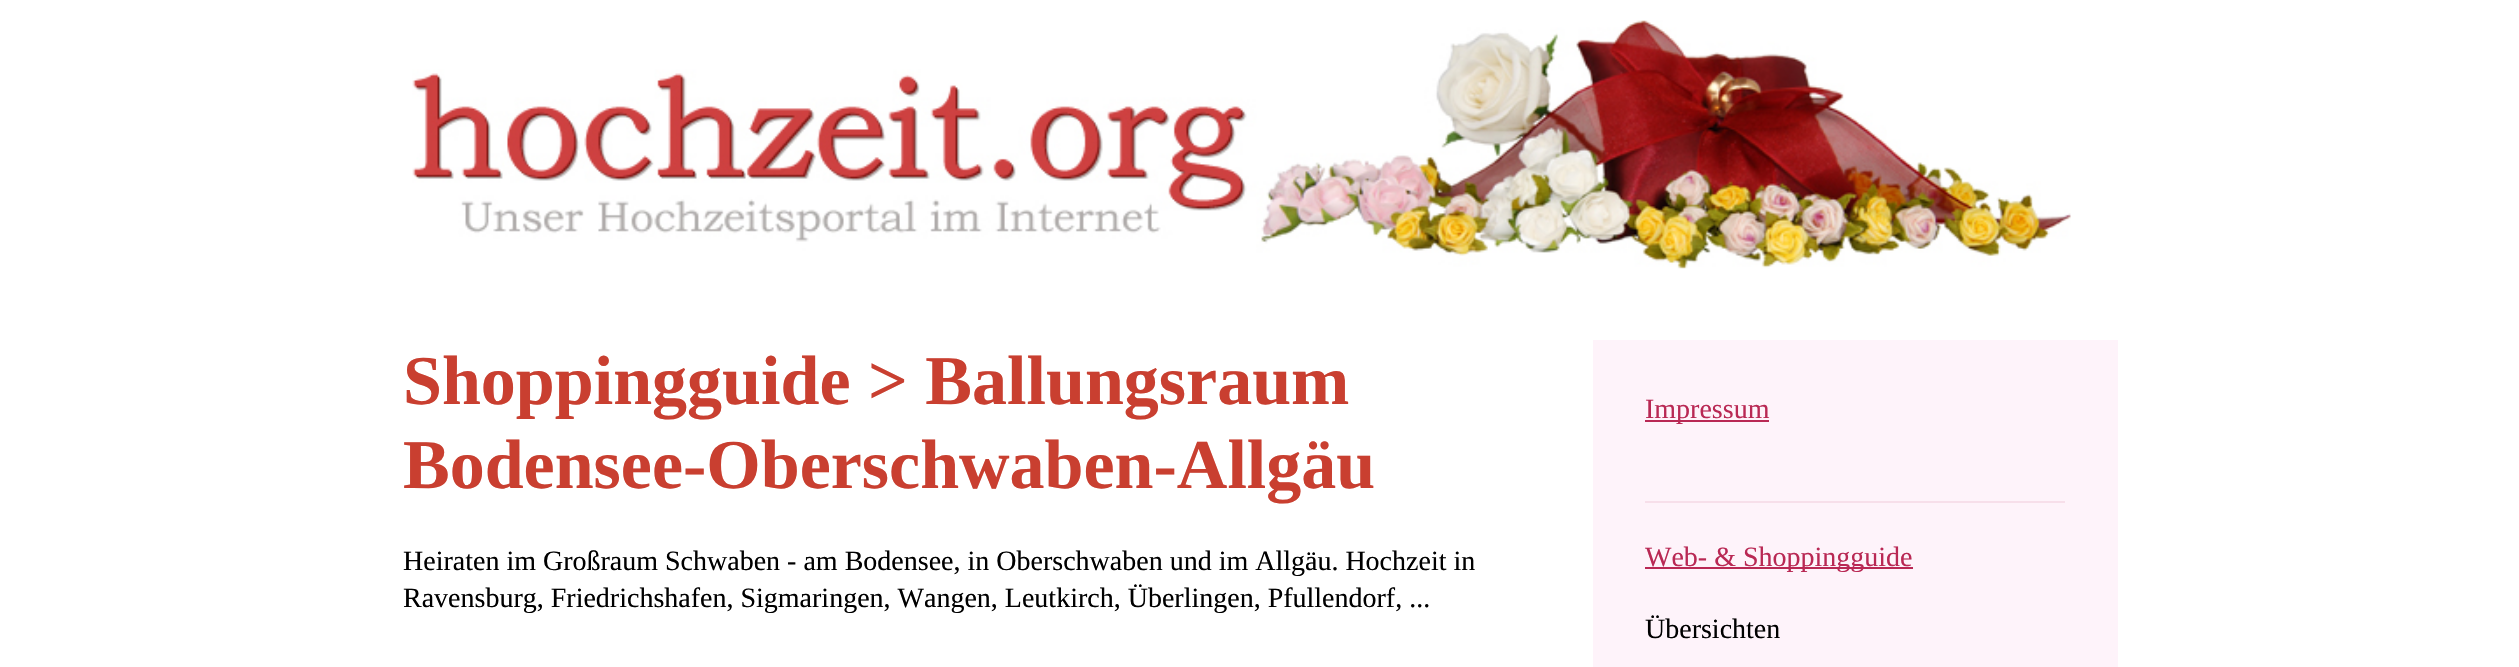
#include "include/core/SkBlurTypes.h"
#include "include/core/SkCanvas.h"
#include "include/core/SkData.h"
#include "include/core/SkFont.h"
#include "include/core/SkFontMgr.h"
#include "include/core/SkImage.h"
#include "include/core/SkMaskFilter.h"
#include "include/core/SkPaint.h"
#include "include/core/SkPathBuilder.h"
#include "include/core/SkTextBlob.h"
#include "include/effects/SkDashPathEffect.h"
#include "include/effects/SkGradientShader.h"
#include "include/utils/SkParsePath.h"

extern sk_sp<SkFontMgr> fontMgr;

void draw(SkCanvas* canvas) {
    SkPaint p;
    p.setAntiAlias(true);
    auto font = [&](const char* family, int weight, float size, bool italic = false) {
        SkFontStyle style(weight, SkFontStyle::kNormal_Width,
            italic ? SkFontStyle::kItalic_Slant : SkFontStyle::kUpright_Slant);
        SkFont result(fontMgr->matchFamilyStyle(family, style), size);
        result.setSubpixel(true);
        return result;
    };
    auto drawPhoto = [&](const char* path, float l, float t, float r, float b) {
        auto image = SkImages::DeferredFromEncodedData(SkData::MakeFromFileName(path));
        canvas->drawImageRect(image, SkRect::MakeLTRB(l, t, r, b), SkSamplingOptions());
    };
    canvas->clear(0xFFFFFFFF);
    drawPhoto("media/1.png", 412, 20, 2071, 269);
    auto font1 = font("Liberation Serif", 700, 70);
    p.setColor(0xFFC93F30);
    canvas->drawString("Shoppingguide > Ballungsraum", 403, 404, font1, p);
    canvas->drawString("Bodensee-Oberschwaben-Allgäu", 403, 488, font1, p);
    auto font2 = font("Liberation Serif", 400, 28);
    p.setColor(0xFF000000);
    canvas->drawString("Heiraten im Großraum Schwaben - am Bodensee, in Oberschwaben und im Allgäu. Hochzeit in", 403, 570, font2, p);
    canvas->drawString("Ravensburg, Friedrichshafen, Sigmaringen, Wangen, Leutkirch, Überlingen, Pfullendorf, ...", 403, 607, font2, p);
    p.setColor(0xFFFEF3FA);
    canvas->drawRect(SkRect::MakeLTRB(1593, 340, 2118, 667), p);
    p.setColor(0xFFB92854);
    canvas->drawRect(SkRect::MakeLTRB(1645, 420, 1769, 422), p);
    canvas->drawString("Impressum", 1645, 418, font2, p);
    p.setColor(0xFFF7DFEA);
    canvas->drawRect(SkRect::MakeLTRB(1645, 501, 2065, 503), p);
    p.setColor(0xFFB92854);
    canvas->drawRect(SkRect::MakeLTRB(1645, 567, 1913, 569), p);
    canvas->drawString("Web- & Shoppingguide", 1645, 566, font2, p);
    p.setColor(0xFF000000);
    canvas->drawString("Übersichten", 1645, 638, font2, p);
}
